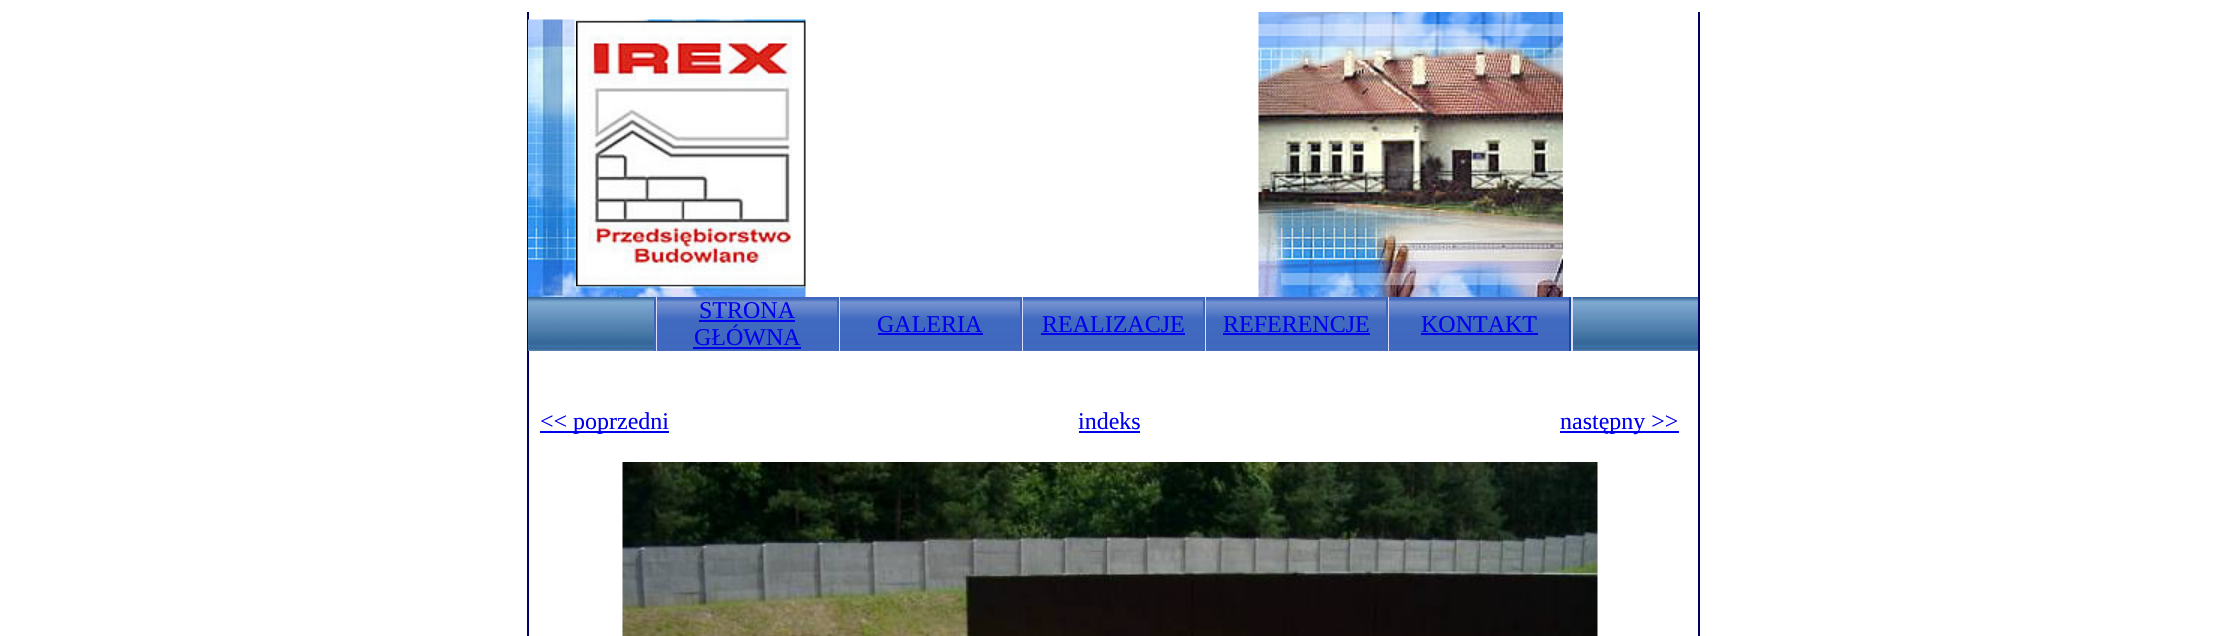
#include "include/core/SkBlurTypes.h"
#include "include/core/SkCanvas.h"
#include "include/core/SkData.h"
#include "include/core/SkFont.h"
#include "include/core/SkFontMgr.h"
#include "include/core/SkImage.h"
#include "include/core/SkMaskFilter.h"
#include "include/core/SkPaint.h"
#include "include/core/SkPathBuilder.h"
#include "include/core/SkTextBlob.h"
#include "include/effects/SkDashPathEffect.h"
#include "include/effects/SkGradientShader.h"
#include "include/utils/SkParsePath.h"

extern sk_sp<SkFontMgr> fontMgr;

void draw(SkCanvas* canvas) {
    SkPaint p;
    p.setAntiAlias(true);
    auto font = [&](const char* family, int weight, float size, bool italic = false) {
        SkFontStyle style(weight, SkFontStyle::kNormal_Width,
            italic ? SkFontStyle::kItalic_Slant : SkFontStyle::kUpright_Slant);
        SkFont result(fontMgr->matchFamilyStyle(family, style), size);
        result.setSubpixel(true);
        return result;
    };
    auto drawPhoto = [&](const char* path, float l, float t, float r, float b) {
        auto image = SkImages::DeferredFromEncodedData(SkData::MakeFromFileName(path));
        canvas->drawImageRect(image, SkRect::MakeLTRB(l, t, r, b), SkSamplingOptions());
    };
    canvas->clear(0xFFFFFFFF);
    p.setColor(0xFF000066);
    canvas->drawRect(SkRect::MakeLTRB(1698, 12, 1700, 636), p);
    canvas->drawRect(SkRect::MakeLTRB(527, 12, 529, 636), p);
    drawPhoto("media/1.png", 528, 19, 576, 297);
    drawPhoto("media/2.png", 576, 19, 806, 287);
    drawPhoto("media/3.png", 1258, 12, 1410, 297);
    drawPhoto("media/4.png", 1410, 12, 1563, 297);
    drawPhoto("media/5.png", 576, 286, 806, 297);
    drawPhoto("media/6.png", 528, 297, 1698, 351);
    p.setColor(0xFF3D66B8);
    canvas->drawRect(SkRect::MakeLTRB(654, 297, 656, 351), p);
    p.setColor(0xFFDDDDFF);
    canvas->drawRect(SkRect::MakeLTRB(656, 297, 657, 351), p);
    drawPhoto("media/7.png", 657, 297, 837, 351);
    auto font1 = font("Liberation Serif", 400, 24);
    p.setColor(0xFF0000EE);
    canvas->drawString("STRONA", 699, 318, font1, p);
    canvas->drawRect(SkRect::MakeLTRB(699, 320, 795, 322), p);
    canvas->drawString("GŁÓWNA", 694, 345, font1, p);
    {
        const struct { float l, t, r, b; SkColor color; } items[] = {
            {693, 347, 801, 349, 0xFF0000EE},
            {837, 297, 839, 351, 0xFF3D66B8},
            {839, 297, 840, 351, 0xFFDDDDFF},
        };
        for (auto [l, t, r, b, color] : items) {
            p.setColor(color);
            canvas->drawRect(SkRect::MakeLTRB(l, t, r, b), p);
        }
    }
    drawPhoto("media/8.png", 840, 297, 1020, 351);
    p.setColor(0xFF0000EE);
    canvas->drawString("GALERIA", 877, 332, font1, p);
    {
        const struct { float l, t, r, b; SkColor color; } items[] = {
            {878, 333, 983, 335, 0xFF0000EE},
            {1020, 297, 1022, 351, 0xFF3D66B8},
            {1022, 297, 1023, 351, 0xFFDDDDFF},
        };
        for (auto [l, t, r, b, color] : items) {
            p.setColor(color);
            canvas->drawRect(SkRect::MakeLTRB(l, t, r, b), p);
        }
    }
    drawPhoto("media/9.png", 1023, 297, 1203, 351);
    p.setColor(0xFF0000EE);
    canvas->drawString("REALIZACJE", 1042, 332, font1, p);
    {
        const struct { float l, t, r, b; SkColor color; } items[] = {
            {1041, 333, 1185, 335, 0xFF0000EE},
            {1203, 297, 1205, 351, 0xFF3D66B8},
            {1205, 297, 1206, 351, 0xFFDDDDFF},
        };
        for (auto [l, t, r, b, color] : items) {
            p.setColor(color);
            canvas->drawRect(SkRect::MakeLTRB(l, t, r, b), p);
        }
    }
    drawPhoto("media/10.png", 1206, 297, 1386, 351);
    p.setColor(0xFF0000EE);
    canvas->drawString("REFERENCJE", 1223, 332, font1, p);
    {
        const struct { float l, t, r, b; SkColor color; } items[] = {
            {1223, 333, 1370, 335, 0xFF0000EE},
            {1386, 297, 1388, 351, 0xFF3D66B8},
            {1388, 297, 1389, 351, 0xFFDDDDFF},
        };
        for (auto [l, t, r, b, color] : items) {
            p.setColor(color);
            canvas->drawRect(SkRect::MakeLTRB(l, t, r, b), p);
        }
    }
    drawPhoto("media/11.png", 1389, 297, 1569, 351);
    p.setColor(0xFF0000EE);
    canvas->drawString("KONTAKT", 1421, 332, font1, p);
    {
        const struct { float l, t, r, b; SkColor color; } items[] = {
            {1421, 333, 1538, 335, 0xFF0000EE},
            {1569, 297, 1571, 351, 0xFF1D4698},
            {1571, 297, 1573, 351, 0xFFDDDDFF},
            {540, 431, 669, 433, 0xFF0000EE},
        };
        for (auto [l, t, r, b, color] : items) {
            p.setColor(color);
            canvas->drawRect(SkRect::MakeLTRB(l, t, r, b), p);
        }
    }
    canvas->drawString("<< poprzedni", 540, 429, font1, p);
    canvas->drawString("indeks", 1078, 429, font1, p);
    canvas->drawRect(SkRect::MakeLTRB(1079, 431, 1140, 433), p);
    canvas->drawRect(SkRect::MakeLTRB(1560, 431, 1679, 433), p);
    canvas->drawString("następny >>", 1560, 429, font1, p);
    drawPhoto("media/12.png", 622, 462, 1598, 636);
}
